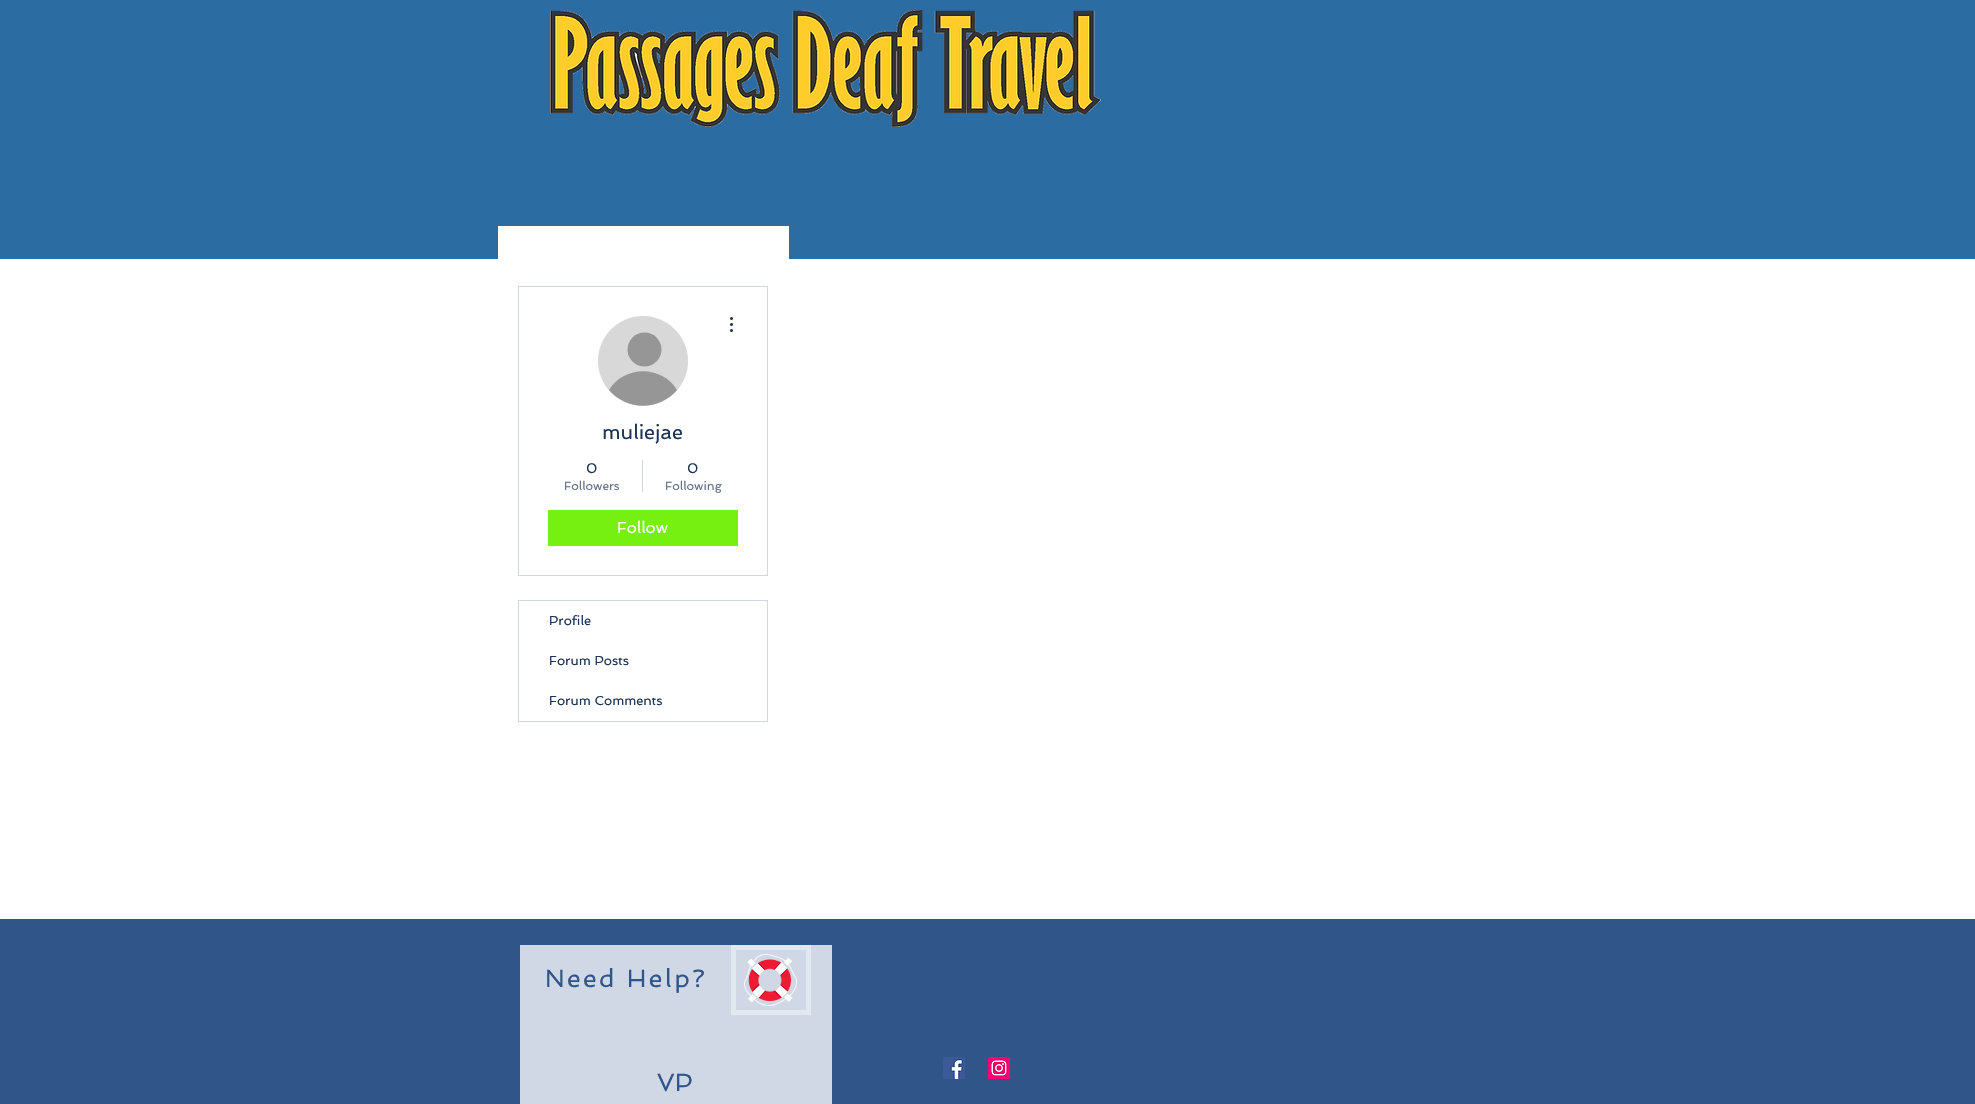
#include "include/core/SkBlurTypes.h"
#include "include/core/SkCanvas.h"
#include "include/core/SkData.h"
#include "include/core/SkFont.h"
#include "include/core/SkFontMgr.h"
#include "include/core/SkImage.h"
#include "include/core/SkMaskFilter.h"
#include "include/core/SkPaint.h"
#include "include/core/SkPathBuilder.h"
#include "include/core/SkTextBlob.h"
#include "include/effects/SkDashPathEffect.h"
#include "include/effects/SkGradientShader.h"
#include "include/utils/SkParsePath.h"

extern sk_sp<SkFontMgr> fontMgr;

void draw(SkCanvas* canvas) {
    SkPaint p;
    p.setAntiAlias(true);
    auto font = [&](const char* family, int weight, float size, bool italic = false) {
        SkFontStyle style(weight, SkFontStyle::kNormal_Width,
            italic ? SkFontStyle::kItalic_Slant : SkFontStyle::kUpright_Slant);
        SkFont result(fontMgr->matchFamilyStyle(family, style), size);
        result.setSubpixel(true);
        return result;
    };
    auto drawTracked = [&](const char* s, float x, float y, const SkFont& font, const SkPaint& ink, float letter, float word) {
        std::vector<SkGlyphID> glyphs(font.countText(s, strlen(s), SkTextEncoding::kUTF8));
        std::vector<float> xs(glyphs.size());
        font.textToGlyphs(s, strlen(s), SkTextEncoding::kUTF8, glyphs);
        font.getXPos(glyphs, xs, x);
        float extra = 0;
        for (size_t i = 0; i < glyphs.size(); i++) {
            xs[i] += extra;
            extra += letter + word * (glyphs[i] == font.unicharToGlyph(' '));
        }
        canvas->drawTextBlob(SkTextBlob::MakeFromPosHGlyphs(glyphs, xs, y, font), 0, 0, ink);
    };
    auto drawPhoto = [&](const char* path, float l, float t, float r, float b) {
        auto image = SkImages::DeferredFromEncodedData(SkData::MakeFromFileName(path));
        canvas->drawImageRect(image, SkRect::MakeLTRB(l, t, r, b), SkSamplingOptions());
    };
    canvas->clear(0xFFFFFFFF);
    p.setColor(0xFF2B6CA3);
    canvas->drawRect(SkRect::MakeLTRB(0, 0, 1975, 259), p);
    drawPhoto("media/1.png", 550, 10, 1101, 127);
    p.setColor(0xFFFFFFFF);
    canvas->drawRect(SkRect::MakeLTRB(498, 226, 789, 259), p);
    p.setStyle(SkPaint::kStroke_Style);
    p.setStrokeWidth(1);
    p.setColor(0xFFD2D6DD);
    canvas->drawRect(SkRect::MakeLTRB(518.5f, 286.5f, 767.5f, 575.5f), p);
    p.setStyle(SkPaint::kFill_Style);
    p.setColor(0xFFD8D8D8);
    canvas->drawCircle(643, 361, 45, p);
    p.setColor(0xFF969696);
    canvas->drawCircle(644.5f, 349.5f, 17, p);
    canvas->drawPath(SkPathBuilder().moveTo(677, 390).cubicTo(659, 411, 627, 411, 609, 390).cubicTo(624, 365, 662, 365, 677, 390).close().detach(), p);
    drawPhoto("media/2.png", 730, 317, 733, 332);
    auto font1 = font("Spinnaker", 400, 20);
    p.setColor(0xFF1C3353);
    canvas->drawString("muliejae", 602, 439, font1, p);
    auto font2 = font("Spinnaker", 400, 14);
    canvas->drawString("0", 586, 473, font2, p);
    auto font3 = font("Spinnaker", 400, 12);
    p.setColor(0xFF607087);
    canvas->drawString("Followers", 564, 490, font3, p);
    p.setColor(0xFFD2D6DD);
    canvas->drawRect(SkRect::MakeLTRB(642, 460, 643, 492), p);
    p.setColor(0xFF1C3353);
    canvas->drawString("0", 687, 473, font2, p);
    p.setColor(0xFF607087);
    canvas->drawString("Following", 665, 490, font3, p);
    p.setColor(0xFF75F011);
    canvas->drawRect(SkRect::MakeLTRB(548, 510, 738, 546), p);
    auto font4 = font("Spinnaker", 400, 16);
    p.setColor(0xFFFFFFFF);
    canvas->drawString("Follow", 617, 533, font4, p);
    p.setStyle(SkPaint::kStroke_Style);
    p.setColor(0xFFD2D6DD);
    canvas->drawRect(SkRect::MakeLTRB(518.5f, 600.5f, 767.5f, 721.5f), p);
    auto font5 = font("Spinnaker", 400, 13);
    p.setStyle(SkPaint::kFill_Style);
    p.setColor(0xFF1C3353);
    {
        const struct { const char* s; float x, y; } items[] = {
            {"Profile", 549, 625},
            {"Forum Posts", 549, 665},
            {"Forum Comments", 549, 705},
        };
        for (auto [s, x, y] : items) {
            canvas->drawString(s, x, y, font5, p);
        }
    }
    p.setColor(0xFF305589);
    canvas->drawRect(SkRect::MakeLTRB(0, 919, 1975, 1104), p);
    p.setColor(0xFFCFD8E4);
    canvas->drawRect(SkRect::MakeLTRB(520, 945, 832, 1104), p);
    auto font6 = font("Spinnaker", 400, 25);
    p.setColor(0xFF305589);
    drawTracked("Need Help?", 545, 987, font6, p, 2.5f, 0);
    p.setStyle(SkPaint::kStroke_Style);
    p.setStrokeWidth(5);
    p.setColor(0xFFE2E8EF);
    canvas->drawRect(SkRect::MakeLTRB(733.5f, 947.5f, 808.5f, 1012.5f), p);
    drawPhoto("media/3.png", 744, 954, 797, 1006);
    p.setStyle(SkPaint::kFill_Style);
    p.setColor(0xFF305589);
    canvas->drawString("VP", 657, 1091, font6, p);
    drawPhoto("media/4.png", 943, 1057, 965, 1079);
    drawPhoto("media/5.png", 988, 1057, 1010, 1079);
}
